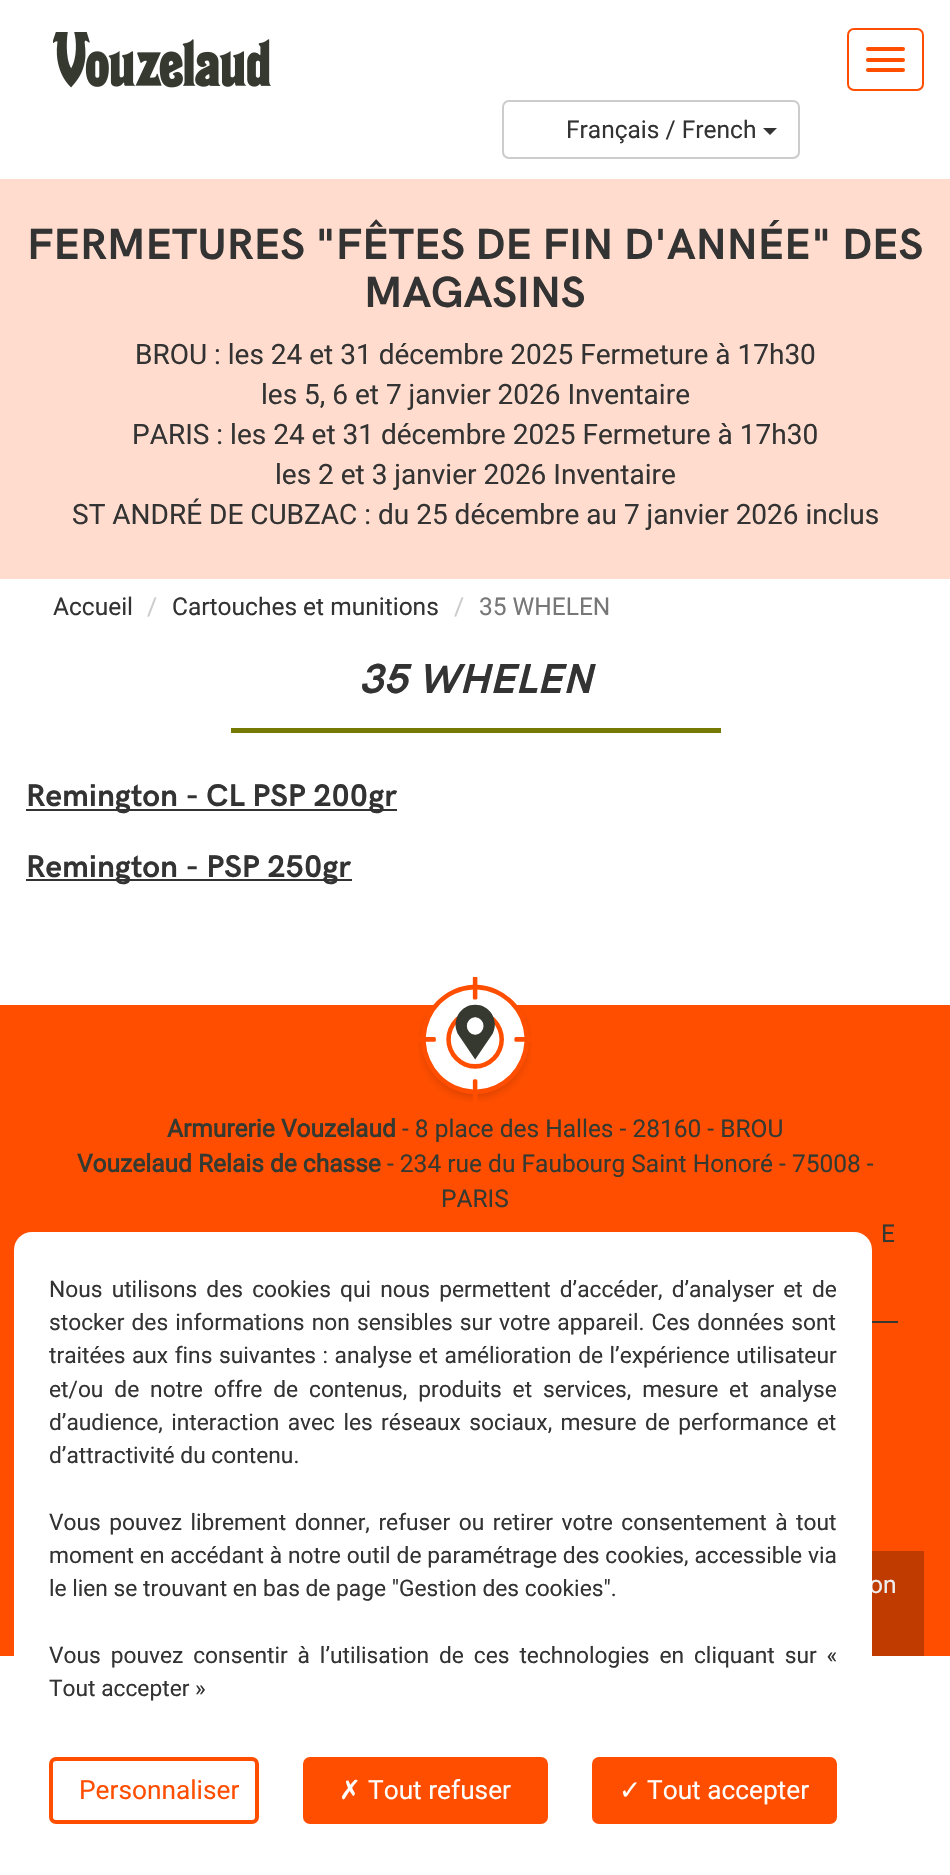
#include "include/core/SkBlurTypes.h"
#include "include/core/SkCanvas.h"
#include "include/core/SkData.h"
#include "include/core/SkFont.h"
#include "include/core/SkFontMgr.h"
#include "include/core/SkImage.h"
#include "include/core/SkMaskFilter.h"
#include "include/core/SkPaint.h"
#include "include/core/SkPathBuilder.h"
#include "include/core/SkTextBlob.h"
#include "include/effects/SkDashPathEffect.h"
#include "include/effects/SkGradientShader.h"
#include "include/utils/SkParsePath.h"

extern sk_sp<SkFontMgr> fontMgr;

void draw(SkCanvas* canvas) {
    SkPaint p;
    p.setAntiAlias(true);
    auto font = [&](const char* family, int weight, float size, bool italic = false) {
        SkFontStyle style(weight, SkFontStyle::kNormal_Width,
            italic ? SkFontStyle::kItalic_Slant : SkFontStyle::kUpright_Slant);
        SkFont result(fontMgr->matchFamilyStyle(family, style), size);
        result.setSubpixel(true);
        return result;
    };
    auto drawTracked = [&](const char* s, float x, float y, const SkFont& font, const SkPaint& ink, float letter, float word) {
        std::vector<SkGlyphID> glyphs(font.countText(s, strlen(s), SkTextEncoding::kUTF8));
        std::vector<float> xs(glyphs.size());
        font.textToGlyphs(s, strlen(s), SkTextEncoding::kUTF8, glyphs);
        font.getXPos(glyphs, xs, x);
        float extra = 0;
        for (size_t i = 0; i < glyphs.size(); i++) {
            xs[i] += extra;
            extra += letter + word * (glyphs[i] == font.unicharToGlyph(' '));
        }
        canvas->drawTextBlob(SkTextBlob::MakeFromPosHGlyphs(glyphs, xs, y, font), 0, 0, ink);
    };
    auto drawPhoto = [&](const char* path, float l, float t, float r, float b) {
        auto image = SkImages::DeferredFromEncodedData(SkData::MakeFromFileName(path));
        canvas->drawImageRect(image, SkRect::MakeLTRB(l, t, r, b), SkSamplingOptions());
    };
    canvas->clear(0xFFFFFFFF);
    drawPhoto("media/1.png", 53, 32, 271, 88);
    p.setStyle(SkPaint::kStroke_Style);
    p.setStrokeWidth(2);
    p.setColor(0xFFFF4E00);
    canvas->drawRoundRect(SkRect::MakeLTRB(848, 29, 923, 90), 6, 6, p);
    p.setStyle(SkPaint::kFill_Style);
    canvas->drawRoundRect(SkRect::MakeLTRB(866, 47, 905, 51), 2, 2, p);
    canvas->drawRoundRect(SkRect::MakeLTRB(866, 58, 905, 62), 2, 2, p);
    canvas->drawRoundRect(SkRect::MakeLTRB(866, 68, 905, 72), 2, 2, p);
    p.setStyle(SkPaint::kStroke_Style);
    p.setColor(0xFFCCCCCC);
    canvas->drawRoundRect(SkRect::MakeLTRB(503, 101, 799, 158), 6, 6, p);
    auto font1 = font("Roboto", 400, 24.5f);
    p.setStyle(SkPaint::kFill_Style);
    p.setColor(0xFF333333);
    canvas->drawString("Français / French", 566, 138, font1, p);
    canvas->drawPath(SkPathBuilder().moveTo(763, 128).lineTo(777, 128).lineTo(770, 135).close().detach(), p);
    p.setColor(0xFFFFDCCD);
    canvas->drawRect(SkRect::MakeLTRB(0, 179, 950, 579), p);
    auto font2 = font("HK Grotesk", 700, 43.75f);
    p.setColor(0xFF333333);
    canvas->drawString("FERMETURES \"FÊTES DE FIN D'ANNÉE\" DES", 27, 259, font2, p);
    canvas->drawString("MAGASINS", 364, 307, font2, p);
    auto font3 = font("Roboto", 400, 28);
    {
        const struct { const char* s; float x, y; } items[] = {
            {"BROU : les 24 et 31 décembre 2025 Fermeture à 17h30", 135, 364},
            {"les 5, 6 et 7 janvier 2026 Inventaire", 261, 404},
            {"PARIS : les 24 et 31 décembre 2025 Fermeture à 17h30", 132, 444},
            {"les 2 et 3 janvier 2026 Inventaire", 275, 484},
            {"ST ANDRÉ DE CUBZAC : du 25 décembre au 7 janvier 2026 inclus", 72, 524},
        };
        for (auto [s, x, y] : items) {
            canvas->drawString(s, x, y, font3, p);
        }
    }
    canvas->drawString("Accueil", 53, 615, font1, p);
    p.setColor(0xFFCCCCCC);
    canvas->drawString("/", 147, 615, font1, p);
    p.setColor(0xFF333333);
    canvas->drawString("Cartouches et munitions", 172, 615, font1, p);
    p.setColor(0xFFCCCCCC);
    canvas->drawString("/", 454, 615, font1, p);
    p.setColor(0xFF777777);
    canvas->drawString("35 WHELEN", 479, 615, font1, p);
    auto font4 = font("HK Grotesk", 700, 42, true);
    p.setColor(0xFF333333);
    canvas->drawString("35 WHELEN", 359, 693, font4, p);
    p.setColor(0xFF767A05);
    canvas->drawRect(SkRect::MakeLTRB(231, 728, 721, 733), p);
    p.setColor(0xFF333333);
    canvas->drawRect(SkRect::MakeLTRB(26, 809, 397, 811), p);
    auto font5 = font("HK Grotesk", 700, 31.5f);
    canvas->drawString("Remington - CL PSP 200gr", 26, 806, font5, p);
    canvas->drawRect(SkRect::MakeLTRB(26, 879, 352, 881), p);
    canvas->drawString("Remington - PSP 250gr", 26, 877, font5, p);
    p.setColor(0xFFFF4E00);
    canvas->drawRect(SkRect::MakeLTRB(0, 1005, 950, 1656), p);
    drawPhoto("media/2.png", 418, 977, 532, 1102);
    auto font6 = font("Roboto", 700, 24.5f);
    p.setColor(0xFF363930);
    canvas->drawString("Armurerie Vouzelaud", 167, 1137, font6, p);
    canvas->drawString("- 8 place des Halles - 28160 - BROU", 402, 1137, font1, p);
    canvas->drawString("Vouzelaud Relais de chasse", 77, 1172, font6, p);
    {
        const struct { const char* s; float x, y; } items[] = {
            {"- 234 rue du Faubourg Saint Honoré - 75008 -", 387, 1172},
            {"PARIS", 441, 1207},
            {"E", 881, 1242},
        };
        for (auto [s, x, y] : items) {
            canvas->drawString(s, x, y, font1, p);
        }
    }
    canvas->drawRect(SkRect::MakeLTRB(872, 1321, 898, 1323), p);
    p.setColor(0xFFBF3B00);
    canvas->drawRect(SkRect::MakeLTRB(872, 1551, 924, 1656), p);
    p.setColor(0xFFEEEEEE);
    canvas->drawString("on", 869, 1593, font1, p);
    p.setColor(0xFFFFFFFF);
    canvas->drawRoundRect(SkRect::MakeLTRB(14, 1232, 872, 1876), 18, 18, p);
    auto font7 = font("Roboto", 400, 22.75f);
    p.setColor(0xFF333333);
    drawTracked("Nous utilisons des cookies qui nous permettent d’accéder, d’analyser et de", 49, 1297, font7, p, 0, 3.5f);
    drawTracked("stocker des informations non sensibles sur votre appareil. Ces données sont", 49, 1330, font7, p, 0, 1.5f);
    drawTracked("traitées aux fins suivantes : analyse et amélioration de l’expérience utilisateur", 49, 1363, font7, p, 0, 0.9f);
    drawTracked("et/ou de notre offre de contenus, produits et services, mesure et analyse", 49, 1397, font7, p, 0, 5.25f);
    drawTracked("d’audience, interaction avec les réseaux sociaux, mesure de performance et", 49, 1430, font7, p, 0, 2.75f);
    canvas->drawString("d’attractivité du contenu.", 49, 1463, font7, p);
    drawTracked("Vous pouvez librement donner, refuser ou retirer votre consentement à tout", 49, 1530, font7, p, 0, 2.9f);
    drawTracked("moment en accédant à notre outil de paramétrage des cookies, accessible via", 49, 1563, font7, p, 0, 0.25f);
    canvas->drawString("le lien se trouvant en bas de page \"Gestion des cookies\".", 49, 1596, font7, p);
    drawTracked("Vous pouvez consentir à l’utilisation de ces technologies en cliquant sur «", 49, 1663, font7, p, 0, 4.25f);
    canvas->drawString("Tout accepter »", 49, 1696, font7, p);
    p.setStyle(SkPaint::kStroke_Style);
    p.setStrokeWidth(4);
    p.setColor(0xFFFF4E00);
    canvas->drawRoundRect(SkRect::MakeLTRB(51, 1759, 257, 1822), 5, 5, p);
    auto font8 = font("Roboto", 400, 26.25f);
    p.setStyle(SkPaint::kFill_Style);
    canvas->drawString("Personnaliser", 79, 1799, font8, p);
    canvas->drawRoundRect(SkRect::MakeLTRB(305, 1759, 546, 1822), 5, 5, p);
    p.setStyle(SkPaint::kStroke_Style);
    canvas->drawRoundRect(SkRect::MakeLTRB(305, 1759, 546, 1822), 5, 5, p);
    auto font9 = font("DejaVu Sans", 400, 26.25f);
    p.setStyle(SkPaint::kFill_Style);
    p.setColor(0xFFFFFFFF);
    canvas->drawString("✗", 339, 1799, font9, p);
    canvas->drawString("Tout refuser", 368, 1799, font8, p);
    p.setColor(0xFFFF4E00);
    canvas->drawRoundRect(SkRect::MakeLTRB(594, 1759, 835, 1822), 5, 5, p);
    p.setStyle(SkPaint::kStroke_Style);
    canvas->drawRoundRect(SkRect::MakeLTRB(594, 1759, 835, 1822), 5, 5, p);
    p.setStyle(SkPaint::kFill_Style);
    p.setColor(0xFFFFFFFF);
    canvas->drawString("✓", 619, 1799, font9, p);
    canvas->drawString("Tout accepter", 647, 1799, font8, p);
}
